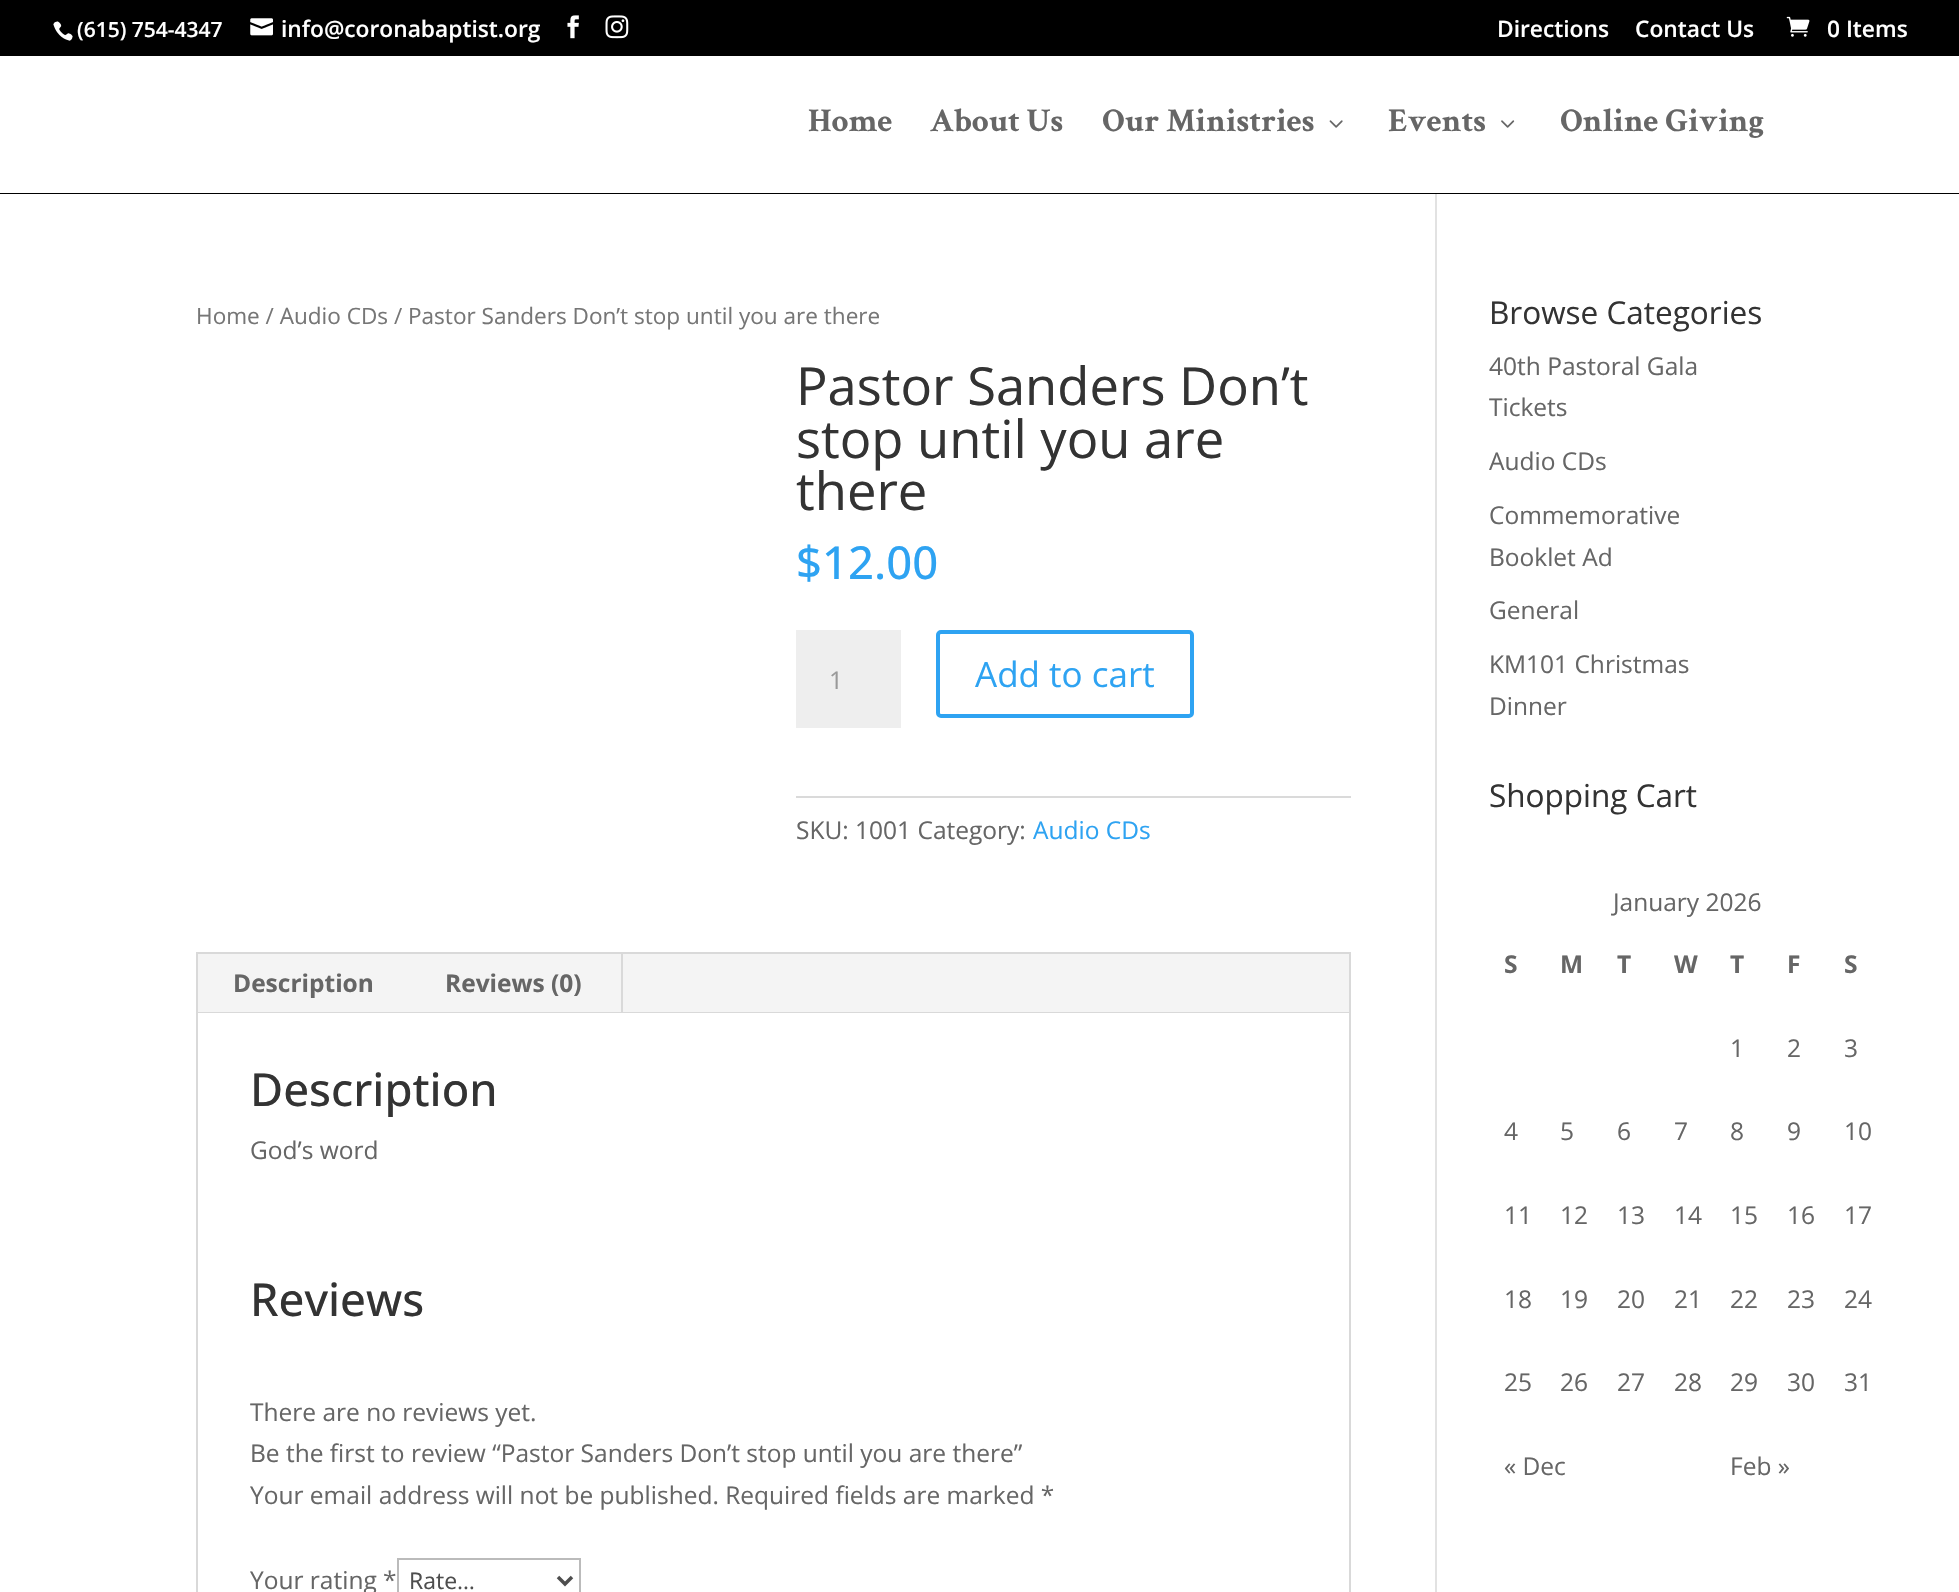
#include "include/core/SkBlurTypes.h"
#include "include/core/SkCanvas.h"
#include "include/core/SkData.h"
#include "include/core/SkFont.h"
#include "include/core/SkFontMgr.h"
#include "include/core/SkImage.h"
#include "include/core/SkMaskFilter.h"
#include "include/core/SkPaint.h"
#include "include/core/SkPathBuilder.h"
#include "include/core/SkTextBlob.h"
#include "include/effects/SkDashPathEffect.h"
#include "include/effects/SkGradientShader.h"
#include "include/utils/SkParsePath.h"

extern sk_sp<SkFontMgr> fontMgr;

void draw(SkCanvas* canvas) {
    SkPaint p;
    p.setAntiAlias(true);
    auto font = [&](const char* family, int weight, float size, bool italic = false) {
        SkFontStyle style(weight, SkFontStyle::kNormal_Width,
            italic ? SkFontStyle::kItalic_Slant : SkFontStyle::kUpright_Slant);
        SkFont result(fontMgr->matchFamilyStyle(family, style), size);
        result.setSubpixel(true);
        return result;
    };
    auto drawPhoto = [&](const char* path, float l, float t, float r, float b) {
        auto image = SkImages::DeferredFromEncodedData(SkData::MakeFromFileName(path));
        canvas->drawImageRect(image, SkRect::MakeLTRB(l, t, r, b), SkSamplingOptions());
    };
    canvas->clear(0xFF000000);
    drawPhoto("media/1.png", 53, 21, 73, 41);
    auto font1 = font("Open Sans", 600, 21);
    p.setColor(0xFFFFFFFF);
    canvas->drawString("(615) 754-4347", 77, 37, font1, p);
    drawPhoto("media/2.png", 250, 18, 273, 36);
    auto font2 = font("Open Sans", 600, 22.75f);
    canvas->drawString("info@coronabaptist.org", 281, 37, font2, p);
    drawPhoto("media/3.png", 567, 15, 579, 39);
    drawPhoto("media/4.png", 605, 15, 629, 39);
    canvas->drawString("Directions", 1497, 37, font2, p);
    canvas->drawString("Contact Us", 1635, 37, font2, p);
    drawPhoto("media/5.png", 1786, 16, 1810, 37);
    canvas->drawString("0 Items", 1827, 37, font2, p);
    canvas->drawRect(SkRect::MakeLTRB(0, 56, 1959, 193), p);
    auto font3 = font("Crimson Text", 700, 33.25f);
    p.setColor(0xFF666666);
    {
        const struct { const char* s; float x, y; } items[] = {
            {"Home", 808, 131},
            {"About Us", 930, 131},
            {"Our Ministries", 1102, 131},
        };
        for (auto [s, x, y] : items) {
            canvas->drawString(s, x, y, font3, p);
        }
    }
    drawPhoto("media/6.png", 1329, 120, 1343, 128);
    canvas->drawString("Events", 1388, 131, font3, p);
    drawPhoto("media/7.png", 1501, 120, 1515, 128);
    canvas->drawString("Online Giving", 1560, 131, font3, p);
    p.setColor(0xFFFFFFFF);
    canvas->drawRect(SkRect::MakeLTRB(0, 194, 1959, 1592), p);
    p.setColor(0xFFE2E2E2);
    canvas->drawRect(SkRect::MakeLTRB(1435, 194, 1437, 1592), p);
    auto font4 = font("Open Sans", 400, 22.55f);
    p.setColor(0xFF767676);
    canvas->drawString("Home / Audio CDs / Pastor Sanders Don’t stop until you are there", 196, 324, font4, p);
    auto font5 = font("Open Sans", 400, 52.5f);
    p.setColor(0xFF333333);
    {
        const struct { const char* s; float x, y; } items[] = {
            {"Pastor Sanders Don’t", 796, 405},
            {"stop until you are", 796, 458},
            {"there", 796, 510},
        };
        for (auto [s, x, y] : items) {
            canvas->drawString(s, x, y, font5, p);
        }
    }
    auto font6 = font("Open Sans", 500, 45.5f);
    p.setColor(0xFF2EA3F2);
    canvas->drawString("$12.00", 796, 579, font6, p);
    p.setColor(0xFFEEEEEE);
    canvas->drawRect(SkRect::MakeLTRB(796, 630, 901, 728), p);
    auto font7 = font("Open Sans", 400, 24.5f);
    p.setColor(0xFF999999);
    canvas->drawString("1", 829, 689, font7, p);
    p.setStyle(SkPaint::kStroke_Style);
    p.setStrokeWidth(4);
    p.setColor(0xFF2EA3F2);
    canvas->drawRoundRect(SkRect::MakeLTRB(938, 632, 1192, 716), 3, 3, p);
    auto font8 = font("Open Sans", 400, 35);
    p.setStyle(SkPaint::kFill_Style);
    canvas->drawString("Add to cart", 975, 687, font8, p);
    p.setColor(0xFFDADADA);
    canvas->drawRect(SkRect::MakeLTRB(796, 796, 1351, 798), p);
    p.setColor(0xFF666666);
    canvas->drawString("SKU: 1001 Category:", 796, 839, font7, p);
    p.setColor(0xFF2EA3F2);
    canvas->drawString("Audio CDs", 1033, 839, font7, p);
    p.setStyle(SkPaint::kStroke_Style);
    p.setStrokeWidth(2);
    p.setColor(0xFFD9D9D9);
    canvas->drawRect(SkRect::MakeLTRB(197, 953, 1350, 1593), p);
    p.setStyle(SkPaint::kFill_Style);
    p.setColor(0xFFF4F4F4);
    canvas->drawRect(SkRect::MakeLTRB(198, 954, 1349, 1012), p);
    auto font9 = font("Open Sans", 700, 24.5f);
    p.setColor(0xFF666666);
    canvas->drawString("Description", 233, 992, font9, p);
    p.setColor(0xFFD9D9D9);
    canvas->drawRect(SkRect::MakeLTRB(621, 954, 623, 1013), p);
    p.setColor(0xFF666666);
    canvas->drawString("Reviews (0)", 445, 992, font9, p);
    p.setColor(0xFFD9D9D9);
    canvas->drawRect(SkRect::MakeLTRB(198, 1012, 1349, 1013), p);
    p.setColor(0xFF333333);
    canvas->drawString("Description", 250, 1106, font6, p);
    p.setColor(0xFF666666);
    canvas->drawString("God’s word", 250, 1159, font7, p);
    p.setColor(0xFF333333);
    canvas->drawString("Reviews", 250, 1316, font6, p);
    p.setColor(0xFF666666);
    {
        const struct { const char* s; float x, y; } items[] = {
            {"There are no reviews yet.", 250, 1421},
            {"Be the first to review “Pastor Sanders Don’t stop until you are there”", 250, 1462},
            {"Your email address will not be published. Required fields are marked *", 250, 1504},
            {"Your rating *", 250, 1589},
        };
        for (auto [s, x, y] : items) {
            canvas->drawString(s, x, y, font7, p);
        }
    }
    p.setStyle(SkPaint::kStroke_Style);
    p.setColor(0xFFBBBBBB);
    canvas->drawRect(SkRect::MakeLTRB(398, 1559, 580, 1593), p);
    p.setStrokeWidth(3.5f);
    p.setColor(0xFF4E4E4E);
    canvas->drawPath(SkPathBuilder().moveTo(558, 1577).lineTo(565, 1584).lineTo(572, 1577).detach(), p);
    auto font10 = font("Open Sans", 400, 23);
    p.setStyle(SkPaint::kFill_Style);
    canvas->drawString("Rate…", 409, 1589, font10, p);
    auto font11 = font("Open Sans", 400, 31.5f);
    p.setColor(0xFF333333);
    canvas->drawString("Browse Categories", 1489, 324, font11, p);
    p.setColor(0xFF666666);
    {
        const struct { const char* s; float x, y; } items[] = {
            {"40th Pastoral Gala", 1489, 375},
            {"Tickets", 1489, 416},
            {"Audio CDs", 1489, 470},
            {"Commemorative", 1489, 524},
            {"Booklet Ad", 1489, 566},
            {"General", 1489, 619},
            {"KM101 Christmas", 1489, 673},
            {"Dinner", 1489, 715},
        };
        for (auto [s, x, y] : items) {
            canvas->drawString(s, x, y, font7, p);
        }
    }
    p.setColor(0xFF333333);
    canvas->drawString("Shopping Cart", 1489, 807, font11, p);
    p.setColor(0xFF666666);
    canvas->drawString("January 2026", 1613, 911, font7, p);
    {
        const struct { const char* s; float x, y; } items[] = {
            {"S", 1504, 973},
            {"M", 1560, 973},
            {"T", 1617, 973},
            {"W", 1674, 973},
            {"T", 1730, 973},
            {"F", 1787, 973},
            {"S", 1844, 973},
        };
        for (auto [s, x, y] : items) {
            canvas->drawString(s, x, y, font9, p);
        }
    }
    {
        const struct { const char* s; float x, y; } items[] = {
            {"1", 1730, 1057},
            {"2", 1787, 1057},
            {"3", 1844, 1057},
            {"4", 1504, 1140},
            {"5", 1560, 1140},
            {"6", 1617, 1140},
            {"7", 1674, 1140},
            {"8", 1730, 1140},
            {"9", 1787, 1140},
            {"10", 1844, 1140},
            {"11", 1504, 1224},
            {"12", 1560, 1224},
            {"13", 1617, 1224},
            {"14", 1674, 1224},
            {"15", 1730, 1224},
            {"16", 1787, 1224},
            {"17", 1844, 1224},
            {"18", 1504, 1308},
            {"19", 1560, 1308},
            {"20", 1617, 1308},
            {"21", 1674, 1308},
            {"22", 1730, 1308},
            {"23", 1787, 1308},
            {"24", 1844, 1308},
            {"25", 1504, 1391},
            {"26", 1560, 1391},
            {"27", 1617, 1391},
            {"28", 1674, 1391},
            {"29", 1730, 1391},
            {"30", 1787, 1391},
            {"31", 1844, 1391},
            {"« Dec", 1504, 1475},
            {"Feb »", 1730, 1475},
        };
        for (auto [s, x, y] : items) {
            canvas->drawString(s, x, y, font7, p);
        }
    }
}
